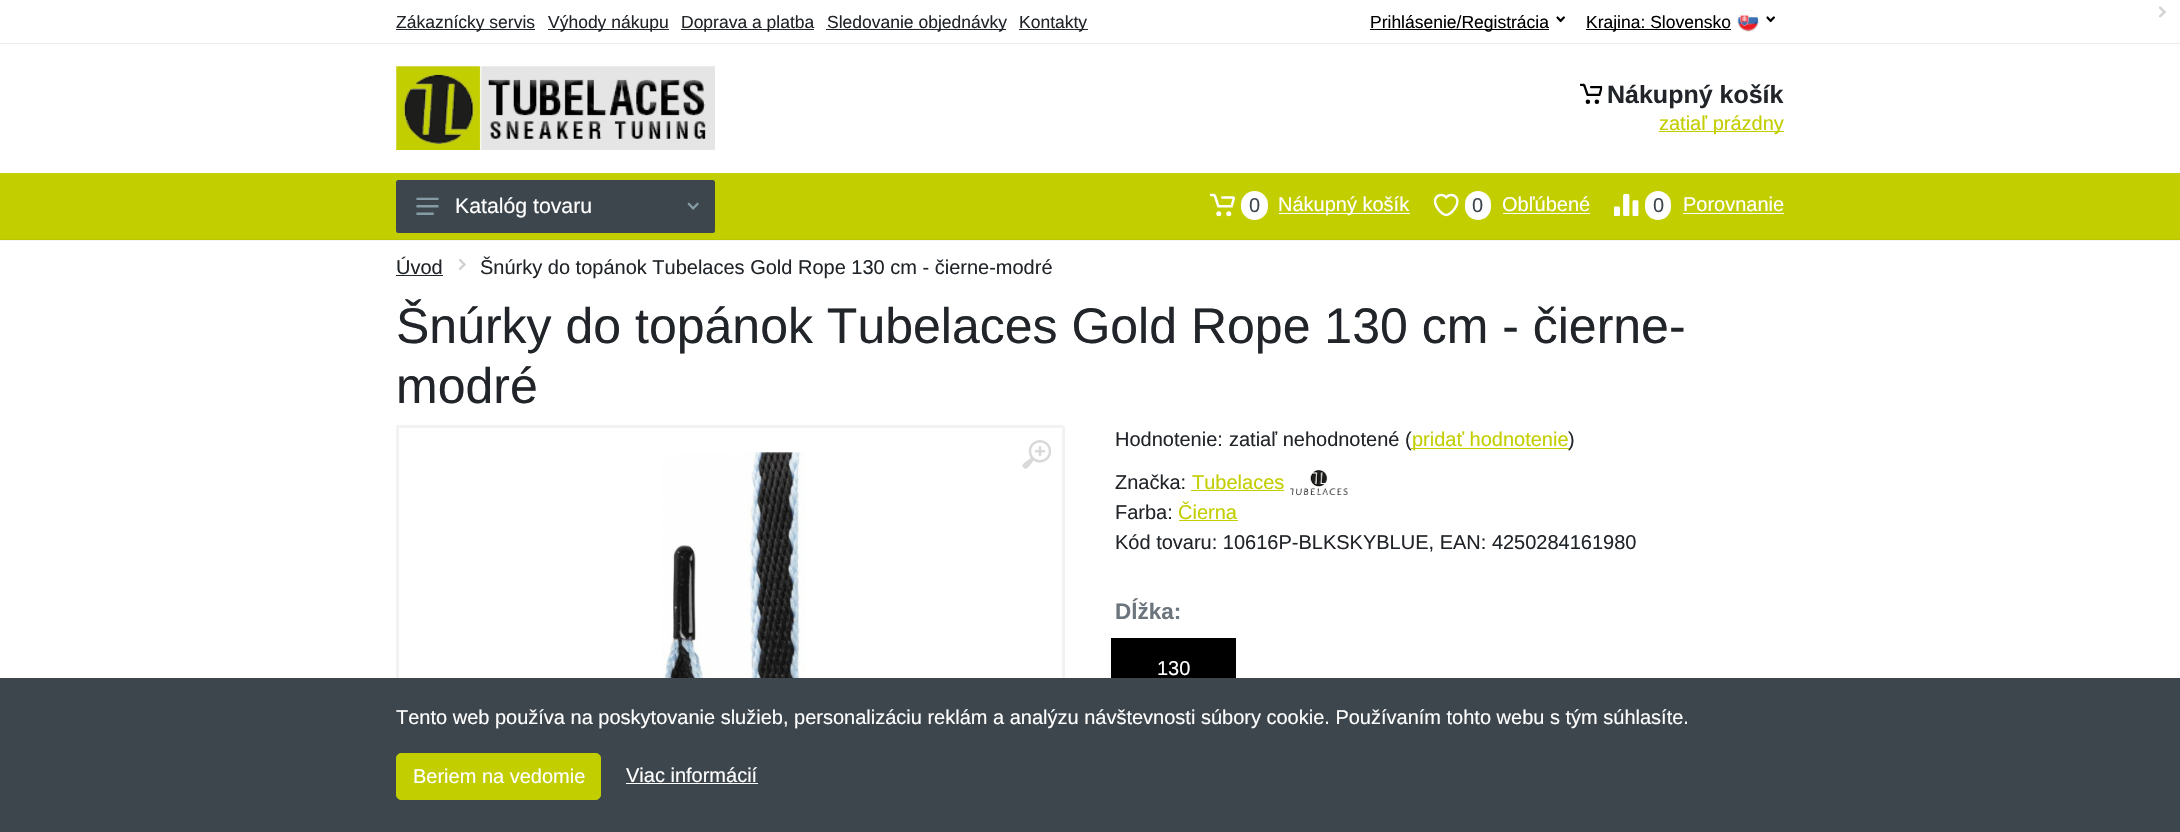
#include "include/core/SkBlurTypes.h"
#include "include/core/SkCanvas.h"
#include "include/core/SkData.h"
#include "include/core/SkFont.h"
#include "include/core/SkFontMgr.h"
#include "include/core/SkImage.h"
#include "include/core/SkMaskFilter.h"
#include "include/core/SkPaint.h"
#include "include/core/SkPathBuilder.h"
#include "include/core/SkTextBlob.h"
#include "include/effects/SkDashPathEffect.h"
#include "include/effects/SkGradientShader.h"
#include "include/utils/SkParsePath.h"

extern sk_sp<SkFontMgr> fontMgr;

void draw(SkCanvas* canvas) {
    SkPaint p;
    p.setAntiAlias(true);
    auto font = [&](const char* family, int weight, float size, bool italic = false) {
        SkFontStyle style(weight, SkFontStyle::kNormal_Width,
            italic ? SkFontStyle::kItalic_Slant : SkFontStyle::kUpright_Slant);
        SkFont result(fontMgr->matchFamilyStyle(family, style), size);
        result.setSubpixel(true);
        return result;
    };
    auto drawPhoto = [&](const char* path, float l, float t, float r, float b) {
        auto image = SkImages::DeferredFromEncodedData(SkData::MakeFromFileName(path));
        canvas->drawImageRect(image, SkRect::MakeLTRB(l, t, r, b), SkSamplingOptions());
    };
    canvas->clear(0xFFFFFFFF);
    drawPhoto("media/10.png", 2159, 6, 2166, 18);
    p.setStyle(SkPaint::kStroke_Style);
    p.setStrokeWidth(1);
    p.setColor(0xFFEBEBEB);
    canvas->drawRect(SkRect::MakeLTRB(-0.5f, -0.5f, 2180.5f, 43.5f), p);
    p.setStyle(SkPaint::kFill_Style);
    p.setColor(0xFF212529);
    canvas->drawRect(SkRect::MakeLTRB(396, 29, 535, 30), p);
    auto font1 = font("Liberation Sans", 400, 17.5f);
    canvas->drawString("Zákaznícky servis", 396, 28, font1, p);
    canvas->drawRect(SkRect::MakeLTRB(548, 29, 669, 30), p);
    canvas->drawString("Výhody nákupu", 548, 28, font1, p);
    canvas->drawRect(SkRect::MakeLTRB(681, 29, 814, 30), p);
    canvas->drawString("Doprava a platba", 681, 28, font1, p);
    canvas->drawRect(SkRect::MakeLTRB(826, 29, 1006, 30), p);
    canvas->drawString("Sledovanie objednávky", 827, 28, font1, p);
    canvas->drawRect(SkRect::MakeLTRB(1019, 29, 1088, 30), p);
    canvas->drawString("Kontakty", 1019, 28, font1, p);
    p.setColor(0xFF000000);
    canvas->drawRect(SkRect::MakeLTRB(1370, 29, 1549, 30), p);
    canvas->drawString("Prihlásenie/Registrácia", 1370, 28, font1, p);
    drawPhoto("media/1.png", 1556, 16, 1565, 23);
    canvas->drawRect(SkRect::MakeLTRB(1586, 29, 1731, 30), p);
    canvas->drawString("Krajina: Slovensko", 1586, 28, font1, p);
    drawPhoto("media/2.png", 1737, 10, 1759, 32);
    drawPhoto("media/1.png", 1766, 16, 1775, 23);
    drawPhoto("media/3.png", 396, 66, 715, 150);
    drawPhoto("media/4.png", 1580, 83, 1603, 104);
    auto font2 = font("Liberation Sans", 700, 25);
    p.setColor(0xFF212529);
    canvas->drawString("Nákupný košík", 1607, 103, font2, p);
    p.setColor(0xFFC2CE00);
    canvas->drawRect(SkRect::MakeLTRB(1659, 131, 1784, 132), p);
    auto font3 = font("Liberation Sans", 400, 20);
    canvas->drawString("zatiaľ prázdny", 1659, 130, font3, p);
    {
        const struct { float l, t, r, b; SkColor color; } items[] = {
            {0, 240, 2180, 241, 0xFFF5F5F5},
            {0, 173, 2180, 239, 0xFFC2CE00},
            {0, 239, 2180, 240, 0xFFBAC600},
        };
        for (auto [l, t, r, b, color] : items) {
            p.setColor(color);
            canvas->drawRect(SkRect::MakeLTRB(l, t, r, b), p);
        }
    }
    p.setColor(0xFF3D464D);
    canvas->drawRoundRect(SkRect::MakeLTRB(396, 180, 715, 233), 2.5f, 2.5f, p);
    drawPhoto("media/5.png", 416, 197, 439, 215);
    auto font4 = font("Liberation Sans", 400, 21.25f);
    p.setColor(0xFFFFFFFF);
    canvas->drawString("Katalóg tovaru", 455, 213, font4, p);
    drawPhoto("media/6.png", 687, 202, 699, 210);
    drawPhoto("media/7.png", 1210, 193, 1235, 217);
    canvas->drawRoundRect(SkRect::MakeLTRB(1241, 191, 1268, 220), 13.5f, 13.5f, p);
    p.setColor(0xFF3D464D);
    canvas->drawString("0", 1249, 212, font3, p);
    p.setColor(0xFFFFFFFF);
    canvas->drawRect(SkRect::MakeLTRB(1279, 213, 1410, 214), p);
    canvas->drawString("Nákupný košík", 1278, 211, font3, p);
    drawPhoto("media/8.png", 1433, 193, 1459, 217);
    canvas->drawRoundRect(SkRect::MakeLTRB(1465, 191, 1491, 220), 13, 13, p);
    p.setColor(0xFF3D464D);
    canvas->drawString("0", 1472, 212, font3, p);
    p.setColor(0xFFFFFFFF);
    canvas->drawString("Obľúbené", 1502, 211, font3, p);
    canvas->drawRect(SkRect::MakeLTRB(1503, 213, 1590, 214), p);
    drawPhoto("media/9.png", 1614, 194, 1639, 216);
    canvas->drawRoundRect(SkRect::MakeLTRB(1645, 191, 1671, 220), 13, 13, p);
    p.setColor(0xFF3D464D);
    canvas->drawString("0", 1653, 212, font3, p);
    p.setColor(0xFFFFFFFF);
    canvas->drawString("Porovnanie", 1683, 211, font3, p);
    canvas->drawRect(SkRect::MakeLTRB(1683, 213, 1784, 214), p);
    p.setColor(0xFF212529);
    canvas->drawString("Úvod", 396, 274, font3, p);
    canvas->drawRect(SkRect::MakeLTRB(396, 275, 443, 276), p);
    drawPhoto("media/11.png", 459, 259, 466, 270);
    canvas->drawString("Šnúrky do topánok Tubelaces Gold Rope 130 cm - čierne-modré", 480, 274, font3, p);
    auto font5 = font("Liberation Sans", 400, 50);
    canvas->drawString("Šnúrky do topánok Tubelaces Gold Rope 130 cm - čierne-", 396, 343, font5, p);
    canvas->drawString("modré", 396, 403, font5, p);
    p.setStyle(SkPaint::kStroke_Style);
    p.setStrokeWidth(3);
    p.setColor(0xFFF2F2F2);
    canvas->drawRoundRect(SkRect::MakeLTRB(397.5f, 426.5f, 1063.5f, 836.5f), 1, 1, p);
    drawPhoto("media/12.png", 661, 452, 806, 678);
    drawPhoto("media/13.png", 1022, 440, 1051, 469);
    p.setStyle(SkPaint::kFill_Style);
    p.setColor(0xFF212529);
    canvas->drawString("Hodnotenie:", 1115, 446, font3, p);
    canvas->drawString("zatiaľ nehodnotené (", 1229, 446, font3, p);
    p.setColor(0xFFC2CE00);
    canvas->drawRect(SkRect::MakeLTRB(1411, 448, 1569, 449), p);
    canvas->drawString("pridať hodnotenie", 1412, 446, font3, p);
    p.setColor(0xFF212529);
    canvas->drawString(")", 1568, 446, font3, p);
    canvas->drawString("Značka:", 1115, 489, font3, p);
    p.setColor(0xFFC2CE00);
    canvas->drawString("Tubelaces", 1192, 489, font3, p);
    canvas->drawRect(SkRect::MakeLTRB(1191, 490, 1284, 491), p);
    drawPhoto("media/14.png", 1290, 470, 1348, 495);
    p.setColor(0xFF212529);
    canvas->drawString("Farba:", 1115, 519, font3, p);
    p.setColor(0xFFC2CE00);
    canvas->drawString("Čierna", 1178, 519, font3, p);
    canvas->drawRect(SkRect::MakeLTRB(1179, 520, 1238, 521), p);
    p.setColor(0xFF212529);
    canvas->drawString("Kód tovaru: 10616P-BLKSKYBLUE, EAN: 4250284161980", 1115, 549, font3, p);
    auto font6 = font("Liberation Sans", 700, 22.5f);
    p.setColor(0xFF6C757D);
    canvas->drawString("Dĺžka:", 1115, 619, font6, p);
    p.setColor(0xFF000000);
    canvas->drawRect(SkRect::MakeLTRB(1111, 638, 1236, 678), p);
    p.setColor(0xFFFFFFFF);
    canvas->drawString("130", 1157, 675, font3, p);
    p.setColor(0xFF3D464D);
    canvas->drawRect(SkRect::MakeLTRB(0, 678, 2180, 832), p);
    p.setColor(0xFFFFFFFF);
    canvas->drawString("Tento web používa na poskytovanie služieb, personalizáciu reklám a analýzu návštevnosti súbory cookie. Používaním tohto webu s tým súhlasíte.", 396, 724, font3, p);
    p.setColor(0xFFC2CE00);
    canvas->drawRoundRect(SkRect::MakeLTRB(396.5f, 753.5f, 600.5f, 799.5f), 4.5f, 4.5f, p);
    p.setStyle(SkPaint::kStroke_Style);
    p.setStrokeWidth(1);
    canvas->drawRoundRect(SkRect::MakeLTRB(396.5f, 753.5f, 600.5f, 799.5f), 4.5f, 4.5f, p);
    p.setStyle(SkPaint::kFill_Style);
    p.setColor(0xFFFFFFFF);
    canvas->drawString("Beriem na vedomie", 413, 783, font3, p);
    canvas->drawString("Viac informácií", 626, 782, font3, p);
    canvas->drawRect(SkRect::MakeLTRB(626, 783, 758, 784), p);
}
